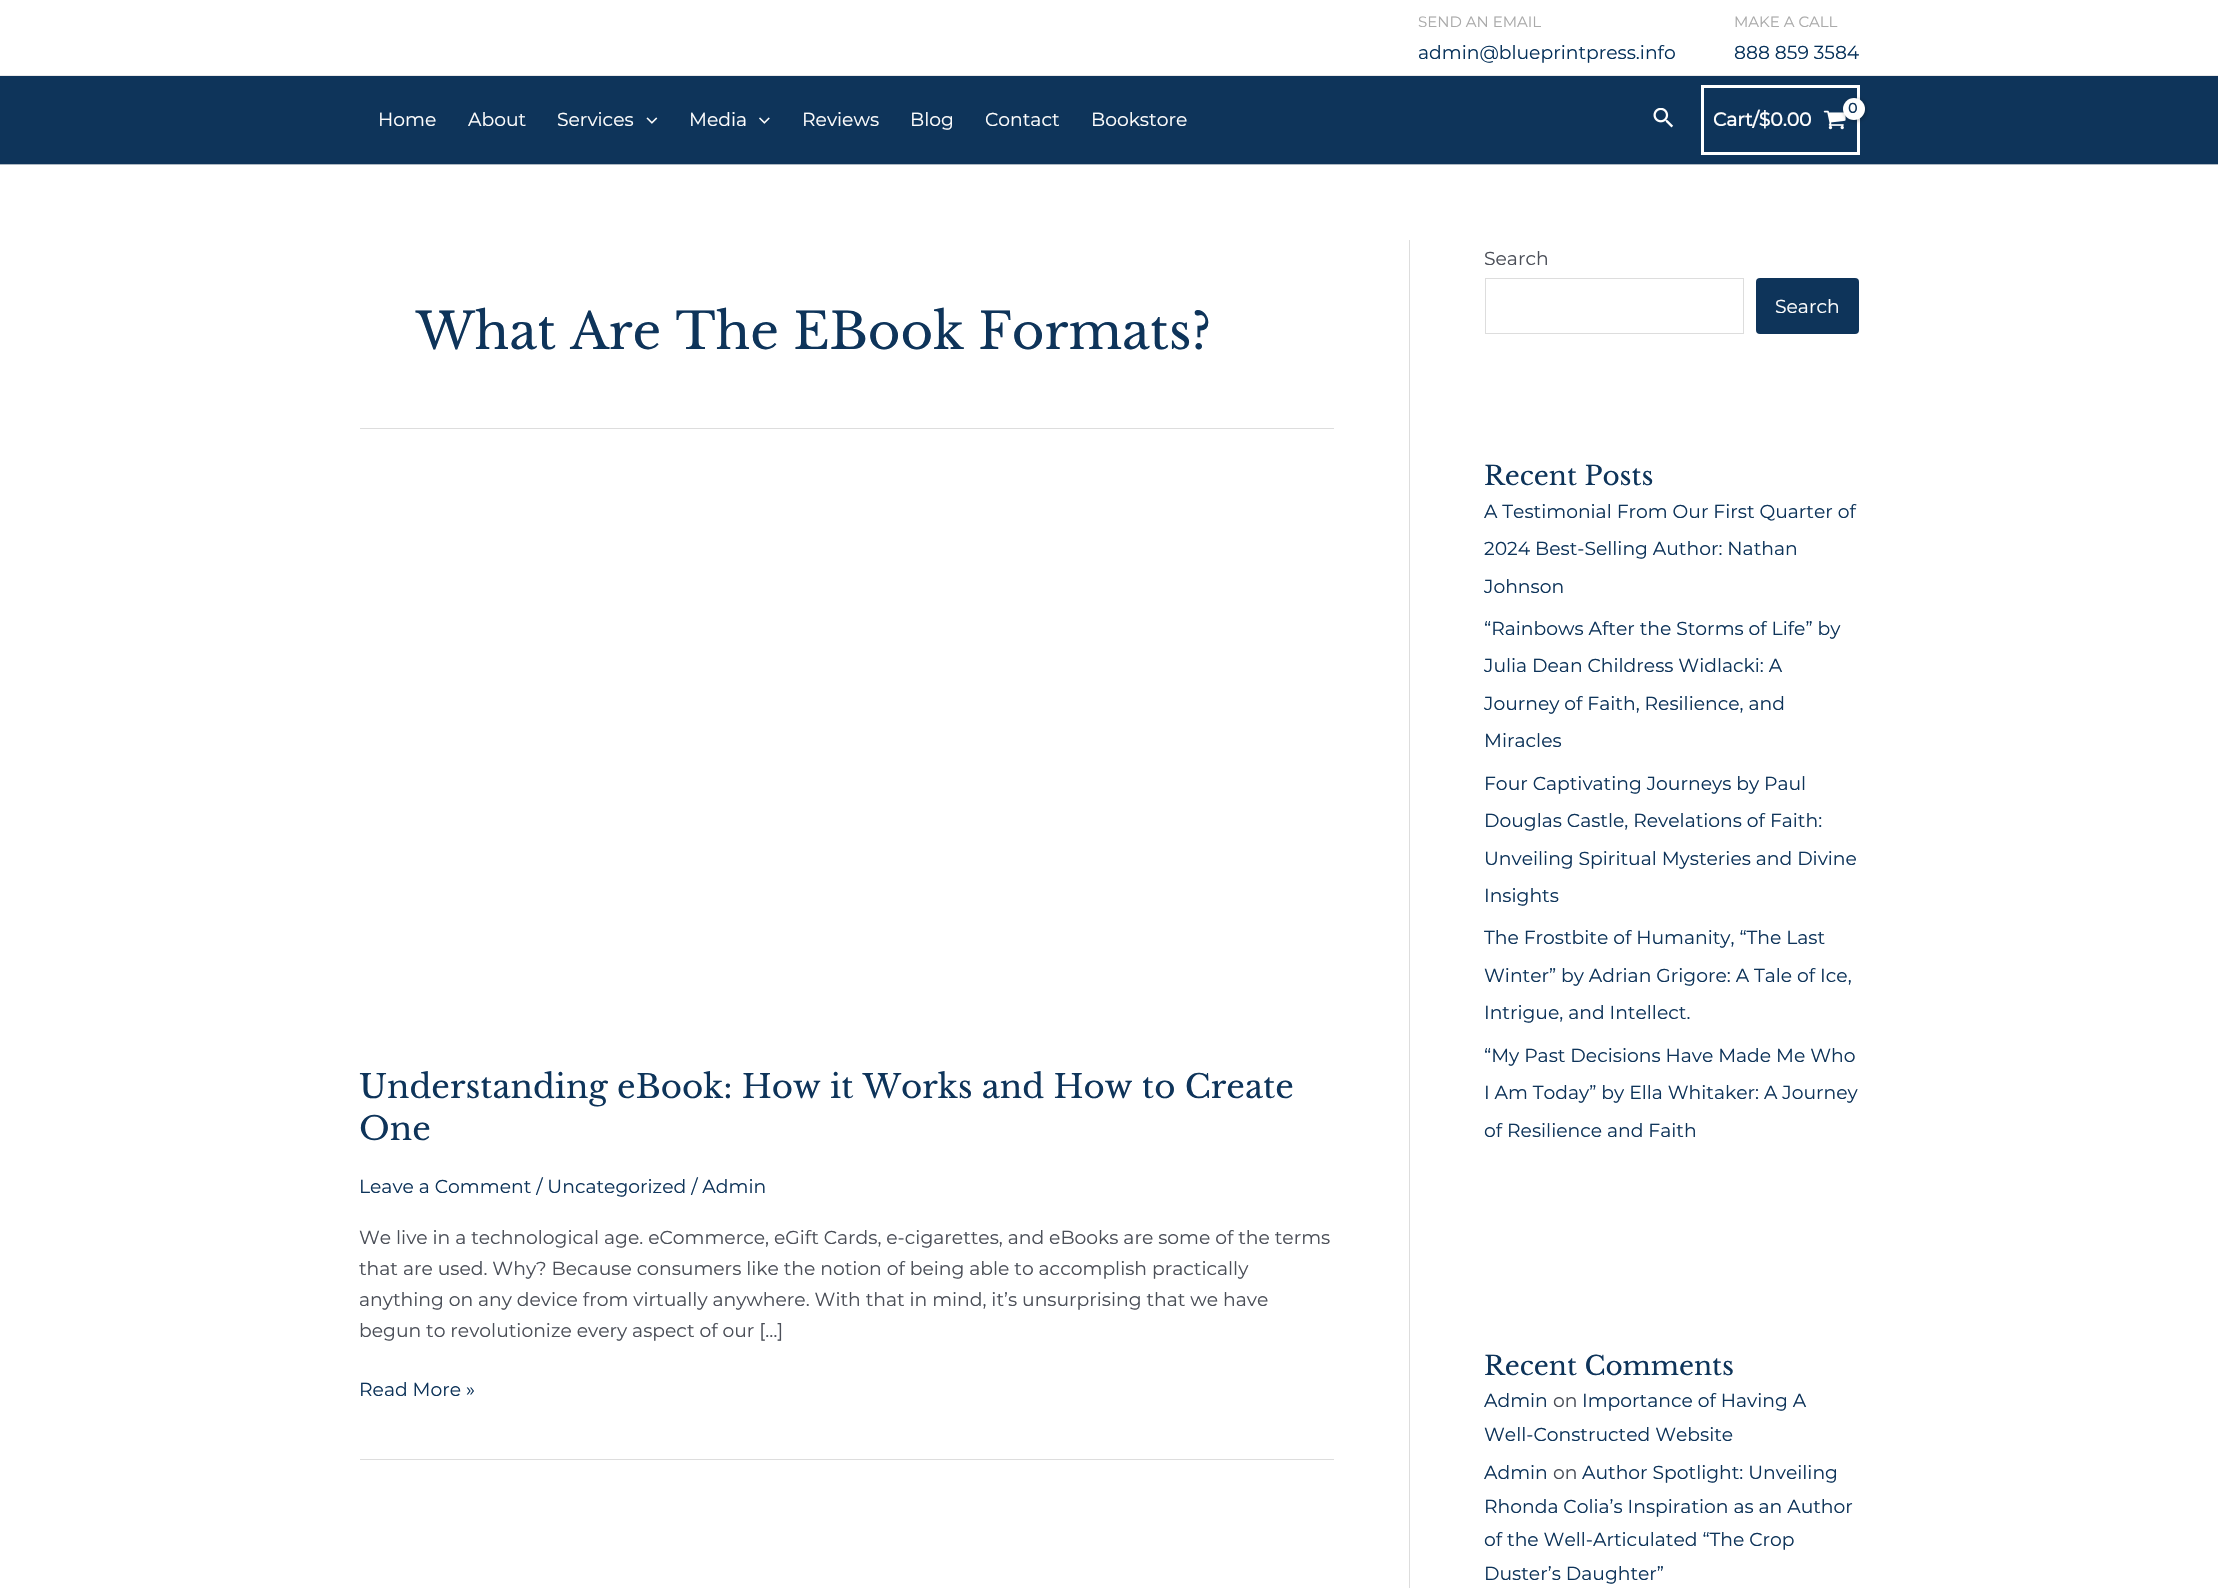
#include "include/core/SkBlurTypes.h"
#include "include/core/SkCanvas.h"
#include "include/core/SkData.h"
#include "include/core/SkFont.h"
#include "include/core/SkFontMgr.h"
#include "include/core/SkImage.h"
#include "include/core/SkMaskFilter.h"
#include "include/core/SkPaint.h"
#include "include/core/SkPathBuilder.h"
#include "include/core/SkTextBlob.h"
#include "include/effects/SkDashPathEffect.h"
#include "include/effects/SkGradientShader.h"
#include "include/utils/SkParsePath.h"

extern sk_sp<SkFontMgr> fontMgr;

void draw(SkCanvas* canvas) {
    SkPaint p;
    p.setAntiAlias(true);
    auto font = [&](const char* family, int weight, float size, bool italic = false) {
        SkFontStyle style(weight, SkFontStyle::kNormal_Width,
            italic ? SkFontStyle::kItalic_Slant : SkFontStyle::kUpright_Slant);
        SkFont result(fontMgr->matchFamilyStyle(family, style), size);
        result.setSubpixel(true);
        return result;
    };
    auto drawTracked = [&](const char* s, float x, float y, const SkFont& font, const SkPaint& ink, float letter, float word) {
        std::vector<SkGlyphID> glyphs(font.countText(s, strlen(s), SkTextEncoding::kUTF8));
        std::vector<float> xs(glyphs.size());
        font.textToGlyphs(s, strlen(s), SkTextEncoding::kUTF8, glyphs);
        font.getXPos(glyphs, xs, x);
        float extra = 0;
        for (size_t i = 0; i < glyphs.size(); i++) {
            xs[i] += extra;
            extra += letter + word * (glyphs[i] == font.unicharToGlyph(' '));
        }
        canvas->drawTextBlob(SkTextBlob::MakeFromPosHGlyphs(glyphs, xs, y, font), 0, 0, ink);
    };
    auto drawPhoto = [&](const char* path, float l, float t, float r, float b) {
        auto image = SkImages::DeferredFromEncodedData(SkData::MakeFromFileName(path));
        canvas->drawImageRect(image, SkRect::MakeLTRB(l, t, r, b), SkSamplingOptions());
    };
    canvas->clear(0xFFFFFFFF);
    p.setColor(0xFFEAEAEA);
    canvas->drawRect(SkRect::MakeLTRB(0, 75, 2218, 76), p);
    auto font1 = font("Montserrat", 100, 15);
    p.setColor(0xFFAAAAAA);
    canvas->drawString("SEND AN EMAIL", 1418, 27, font1, p);
    auto font2 = font("Montserrat", 100, 18.75f);
    p.setColor(0xFF06315A);
    canvas->drawString("admin@blueprintpress.info", 1418, 59, font2, p);
    p.setColor(0xFFAAAAAA);
    canvas->drawString("MAKE A CALL", 1734, 27, font1, p);
    p.setColor(0xFF06315A);
    canvas->drawString("888 859 3584", 1734, 59, font2, p);
    p.setColor(0xFF0E345A);
    canvas->drawRect(SkRect::MakeLTRB(0, 76, 2218, 164), p);
    p.setColor(0xFFADB8C2);
    canvas->drawRect(SkRect::MakeLTRB(0, 164, 2218, 165), p);
    p.setColor(0xFFFEFEFE);
    {
        const struct { const char* s; float x, y; } items[] = {
            {"Home", 378, 126},
            {"About", 468, 126},
            {"Services", 557, 126},
        };
        for (auto [s, x, y] : items) {
            canvas->drawString(s, x, y, font2, p);
        }
    }
    drawPhoto("media/1.png", 646, 117, 658, 124);
    canvas->drawString("Media", 689, 126, font2, p);
    drawPhoto("media/2.png", 759, 117, 770, 124);
    {
        const struct { const char* s; float x, y; } items[] = {
            {"Reviews", 802, 126},
            {"Blog", 910, 126},
            {"Contact", 985, 126},
            {"Bookstore", 1091, 126},
        };
        for (auto [s, x, y] : items) {
            canvas->drawString(s, x, y, font2, p);
        }
    }
    drawPhoto("media/3.png", 1653, 108, 1674, 128);
    p.setStyle(SkPaint::kStroke_Style);
    p.setStrokeWidth(3);
    p.setColor(0xFFFFFFFF);
    canvas->drawRect(SkRect::MakeLTRB(1702.5f, 86.5f, 1858.5f, 153.5f), p);
    drawPhoto("media/4.png", 1823, 110, 1846, 130);
    p.setStyle(SkPaint::kFill_Style);
    p.setColor(0x4D000000);
    p.setMaskFilter(SkMaskFilter::MakeBlur(kNormal_SkBlurStyle, 2));
    canvas->drawRoundRect(SkRect::MakeLTRB(1844, 99, 1866, 121), 11, 11, p);
    p.setMaskFilter(nullptr);
    p.setColor(0xFFFFFFFF);
    canvas->drawCircle(1854, 109, 11, p);
    auto font3 = font("Montserrat", 700, 14);
    p.setColor(0xFF0E345A);
    drawTracked("0", 1848, 113, font3, p, -1, 0);
    auto font4 = font("Montserrat", 700, 18.75f);
    p.setColor(0xFFFEFEFE);
    canvas->drawString("Cart/$0.00", 1713, 126, font4, p);
    p.setColor(0xFFDDDDDD);
    canvas->drawRect(SkRect::MakeLTRB(1409, 240, 1410, 1588), p);
    canvas->drawRect(SkRect::MakeLTRB(360, 428, 1334, 429), p);
    auto font5 = font("Libre Baskerville", 400, 50);
    p.setColor(0xFF0E345A);
    canvas->drawString("What Are The EBook Formats?", 416, 349, font5, p);
    p.setColor(0xFFDDDDDD);
    canvas->drawRect(SkRect::MakeLTRB(360, 1459, 1334, 1460), p);
    auto font6 = font("Libre Baskerville", 400, 32.5f);
    p.setColor(0xFF0E345A);
    canvas->drawString("Understanding eBook: How it Works and How to Create", 359, 1098, font6, p);
    canvas->drawString("One", 359, 1140, font6, p);
    canvas->drawString("Leave a Comment / Uncategorized / Admin", 359, 1193, font2, p);
    p.setColor(0xFF4B4F58);
    {
        const struct { const char* s; float x, y; } items[] = {
            {"We live in a technological age. eCommerce, eGift Cards, e-cigarettes, and eBooks are some of the terms", 359, 1244},
            {"that are used. Why? Because consumers like the notion of being able to accomplish practically", 359, 1275},
            {"anything on any device from virtually anywhere. With that in mind, it’s unsurprising that we have", 359, 1306},
            {"begun to revolutionize every aspect of our […]", 359, 1337},
        };
        for (auto [s, x, y] : items) {
            canvas->drawString(s, x, y, font2, p);
        }
    }
    p.setColor(0xFF0E345A);
    canvas->drawString("Read More »", 359, 1396, font2, p);
    p.setColor(0xFF4B4F58);
    canvas->drawString("Search", 1484, 265, font2, p);
    p.setStyle(SkPaint::kStroke_Style);
    p.setStrokeWidth(1);
    p.setColor(0xFFDDDDDD);
    canvas->drawRect(SkRect::MakeLTRB(1485.5f, 278.5f, 1743.5f, 333.5f), p);
    p.setStyle(SkPaint::kFill_Style);
    p.setColor(0xFF0E345A);
    canvas->drawRoundRect(SkRect::MakeLTRB(1756, 278, 1859, 334), 4, 4, p);
    p.setColor(0xFFFEFEFE);
    canvas->drawString("Search", 1775, 313, font2, p);
    auto font7 = font("Libre Baskerville", 400, 26.25f);
    p.setColor(0xFF0E345A);
    canvas->drawString("Recent Posts", 1484, 485, font7, p);
    {
        const struct { const char* s; float x, y; } items[] = {
            {"A Testimonial From Our First Quarter of", 1484, 518},
            {"2024 Best-Selling Author: Nathan", 1484, 555},
            {"Johnson", 1484, 593},
            {"“Rainbows After the Storms of Life” by", 1484, 635},
            {"Julia Dean Childress Widlacki: A", 1484, 672},
            {"Journey of Faith, Resilience, and", 1484, 710},
            {"Miracles", 1484, 747},
            {"Four Captivating Journeys by Paul", 1484, 790},
            {"Douglas Castle, Revelations of Faith:", 1484, 827},
            {"Unveiling Spiritual Mysteries and Divine", 1484, 865},
            {"Insights", 1484, 902},
            {"The Frostbite of Humanity, “The Last", 1484, 944},
            {"Winter” by Adrian Grigore: A Tale of Ice,", 1484, 982},
            {"Intrigue, and Intellect.", 1484, 1019},
            {"“My Past Decisions Have Made Me Who", 1484, 1062},
            {"I Am Today” by Ella Whitaker: A Journey", 1484, 1099},
            {"of Resilience and Faith", 1484, 1137},
        };
        for (auto [s, x, y] : items) {
            canvas->drawString(s, x, y, font2, p);
        }
    }
    canvas->drawString("Recent Comments", 1484, 1375, font7, p);
    canvas->drawString("Admin", 1484, 1407, font2, p);
    p.setColor(0xFF4B4F58);
    canvas->drawString("on", 1553, 1407, font2, p);
    p.setColor(0xFF0E345A);
    {
        const struct { const char* s; float x, y; } items[] = {
            {"Importance of Having A", 1582, 1407},
            {"Well-Constructed Website", 1484, 1441},
            {"Admin", 1484, 1479},
        };
        for (auto [s, x, y] : items) {
            canvas->drawString(s, x, y, font2, p);
        }
    }
    p.setColor(0xFF4B4F58);
    canvas->drawString("on", 1553, 1479, font2, p);
    p.setColor(0xFF0E345A);
    {
        const struct { const char* s; float x, y; } items[] = {
            {"Author Spotlight: Unveiling", 1582, 1479},
            {"Rhonda Colia’s Inspiration as an Author", 1484, 1513},
            {"of the Well-Articulated “The Crop", 1484, 1546},
            {"Duster’s Daughter”", 1484, 1580},
        };
        for (auto [s, x, y] : items) {
            canvas->drawString(s, x, y, font2, p);
        }
    }
}
